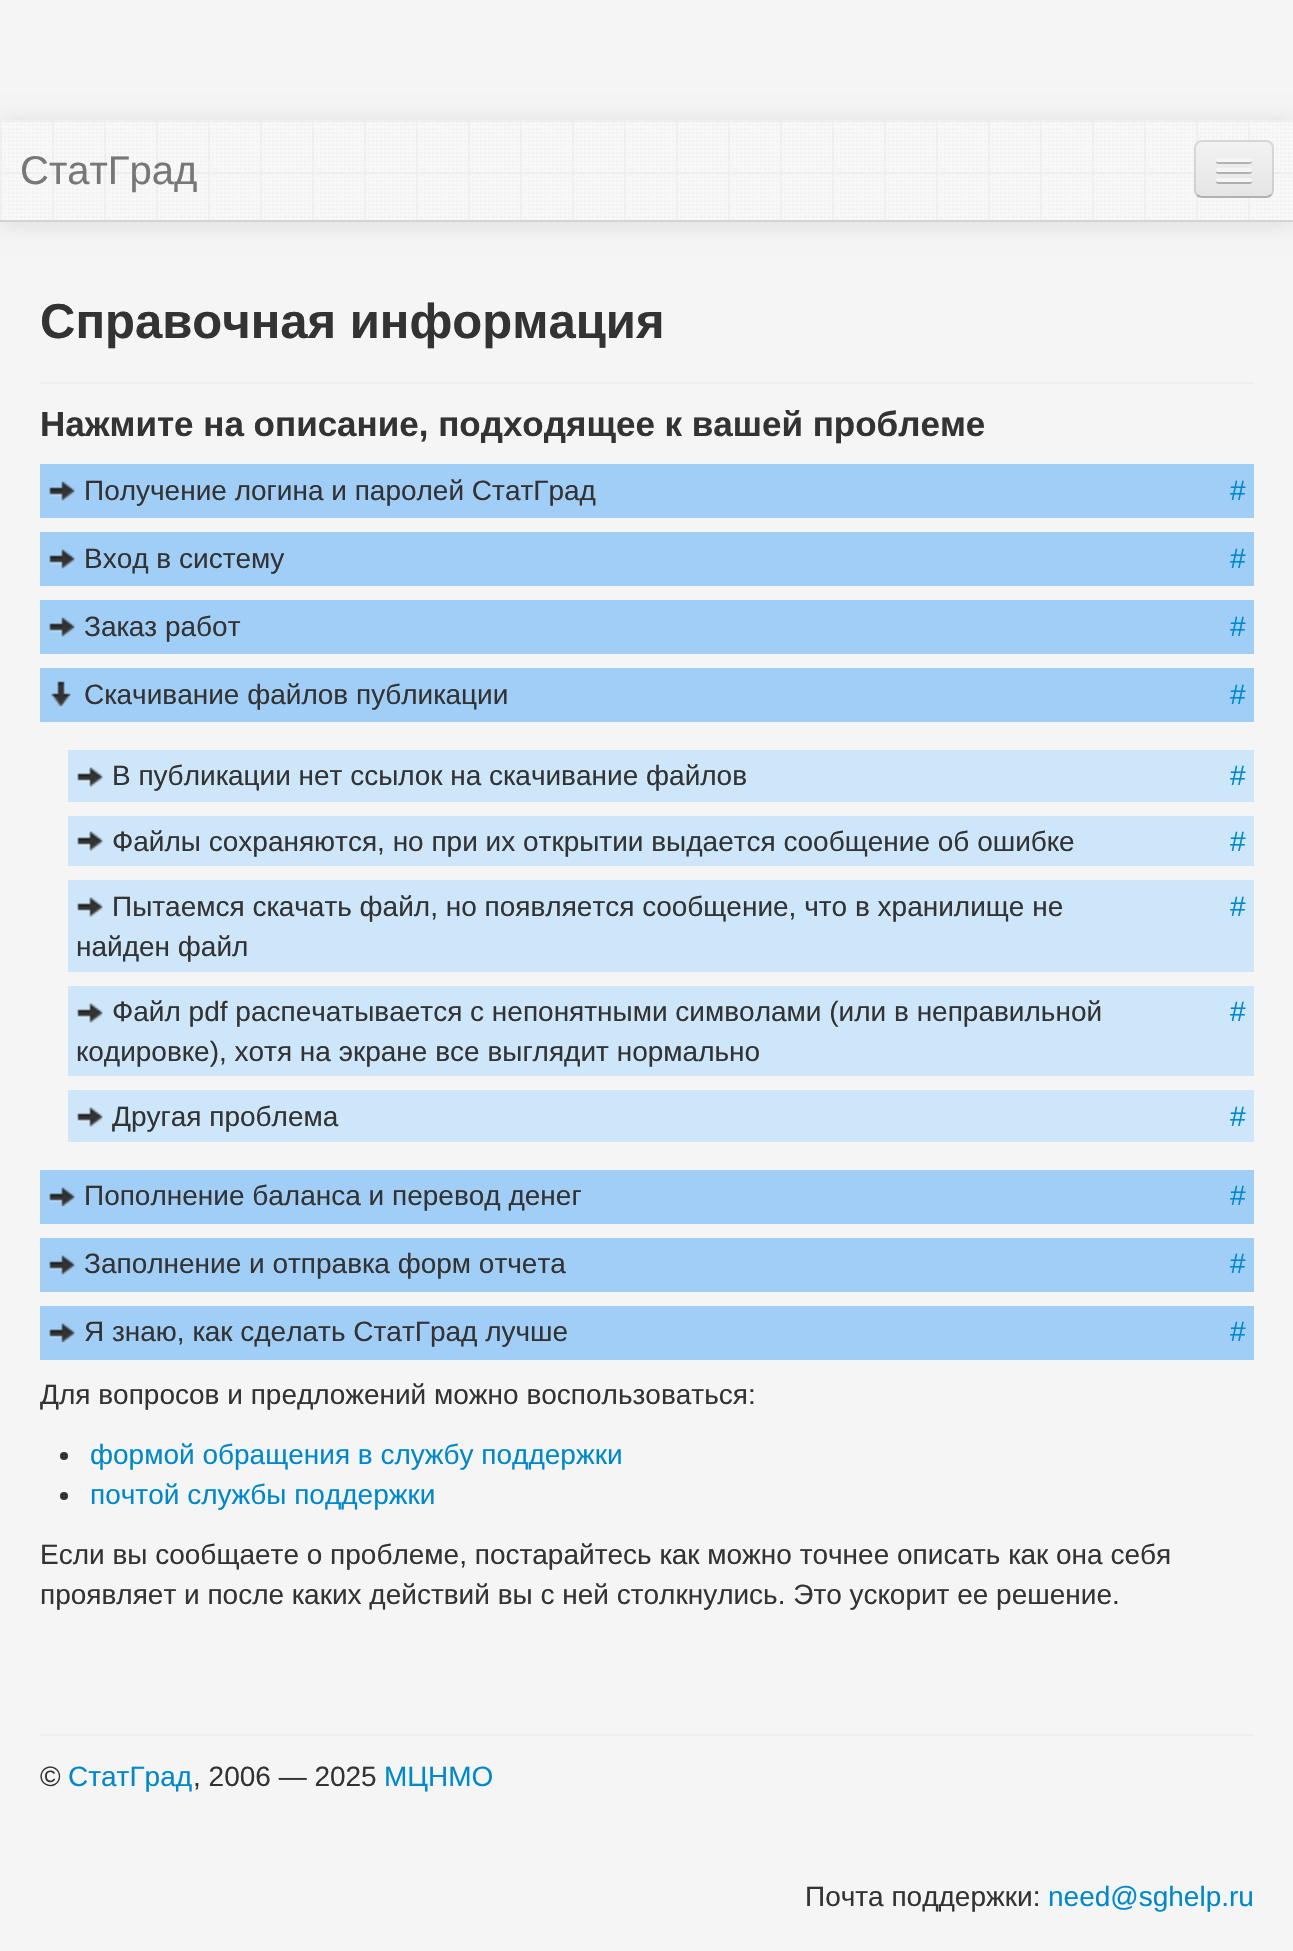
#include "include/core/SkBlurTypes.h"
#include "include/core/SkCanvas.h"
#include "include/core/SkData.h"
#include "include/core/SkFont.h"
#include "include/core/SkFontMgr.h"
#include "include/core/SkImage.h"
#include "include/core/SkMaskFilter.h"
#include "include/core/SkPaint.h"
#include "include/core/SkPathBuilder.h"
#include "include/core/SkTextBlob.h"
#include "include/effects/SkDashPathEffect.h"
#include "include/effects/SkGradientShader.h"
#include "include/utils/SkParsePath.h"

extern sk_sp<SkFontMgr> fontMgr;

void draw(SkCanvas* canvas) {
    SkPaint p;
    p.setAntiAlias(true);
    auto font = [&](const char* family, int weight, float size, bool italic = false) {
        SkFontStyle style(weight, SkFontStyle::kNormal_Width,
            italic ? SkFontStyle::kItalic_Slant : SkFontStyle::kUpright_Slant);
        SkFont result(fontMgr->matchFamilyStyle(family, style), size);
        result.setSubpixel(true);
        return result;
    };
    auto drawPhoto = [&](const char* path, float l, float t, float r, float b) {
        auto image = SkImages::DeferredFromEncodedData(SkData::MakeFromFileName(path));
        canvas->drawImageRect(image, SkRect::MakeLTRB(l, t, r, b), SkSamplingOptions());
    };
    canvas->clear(0xFFF5F5F5);
    p.setColor(0x1A000000);
    p.setMaskFilter(SkMaskFilter::MakeBlur(kNormal_SkBlurStyle, 10));
    canvas->drawRect(SkRect::MakeLTRB(0, 122, 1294, 224), p);
    p.setMaskFilter(nullptr);
    drawPhoto("media/1.png", 0, 120, 1293, 220);
    p.setColor(0xFFD4D4D4);
    canvas->drawRect(SkRect::MakeLTRB(0, 220, 1293, 222), p);
    auto font1 = font("Liberation Sans", 400, 40);
    p.setColor(0xFF777777);
    canvas->drawString("СтатГрад", 20, 184, font1, p);
    p.setColor(0xFFEDEDED);
    canvas->drawRoundRect(SkRect::MakeLTRB(1194, 140, 1274, 198), 8, 8, p);
    canvas->save();
    canvas->clipPath(SkPathBuilder().moveTo(1202, 140).lineTo(1266, 140).cubicTo(1270.5f, 140, 1274, 143.5f, 1274, 148).lineTo(1274, 190).cubicTo(1274, 194.5f, 1270.5f, 198, 1266, 198).lineTo(1202, 198).cubicTo(1197.5f, 198, 1194, 194.5f, 1194, 190).lineTo(1194, 148).cubicTo(1194, 143.5f, 1197.5f, 140, 1202, 140).close().detach(), true);
    {
        const SkColor colors[] = {0xFFF2F2F2, 0xFFE5E5E5};
        const float stops[] = {0, 1};
        const SkPoint ends[] = {{1234, 142}, {1234, 196}};
        p.setShader(SkGradientShader::MakeLinear(ends, colors, stops, 2, SkTileMode::kClamp));
        p.setAlpha(255);
    }
    canvas->drawRect(SkRect::MakeLTRB(1194, 142, 1274, 196), p);
    canvas->restore();
    p.setStyle(SkPaint::kStroke_Style);
    p.setStrokeWidth(2);
    p.setShader(nullptr);
    p.setColor(0x40000000);
    canvas->drawPath(SkPathBuilder().moveTo(1271, 195).cubicTo(1269.5f, 196.5f, 1268, 197, 1266, 197).lineTo(1202, 197).cubicTo(1200, 197, 1198.5f, 196.5f, 1197, 195).detach(), p);
    p.setColor(0x1A000000);
    canvas->drawPath(SkPathBuilder().moveTo(1197, 195).cubicTo(1195.5f, 193.5f, 1195, 192, 1195, 190).lineTo(1195, 148).cubicTo(1195, 146, 1195.5f, 144.5f, 1197, 143).cubicTo(1198.5f, 141.5f, 1200, 141, 1202, 141).lineTo(1266, 141).cubicTo(1268, 141, 1269.5f, 141.5f, 1271, 143).cubicTo(1272.5f, 144.5f, 1273, 146, 1273, 148).lineTo(1273, 190).cubicTo(1273, 192, 1272.5f, 193.5f, 1271, 195).detach(), p);
    p.setStyle(SkPaint::kFill_Style);
    p.setColor(0xFFB2B2B2);
    canvas->drawPath(SkPathBuilder().moveTo(1216.5f, 161).cubicTo(1214, 165, 1223, 164, 1223.5f, 164).lineTo(1244.5f, 164).cubicTo(1245, 164, 1254, 165, 1251.5f, 161).cubicTo(1251.5f, 161.5f, 1250.5f, 162, 1250, 162).lineTo(1218, 162).cubicTo(1217.5f, 162, 1216.5f, 161.5f, 1216.5f, 161).close().detach(), p);
    p.setColor(0xFFF5F5F5);
    canvas->drawRoundRect(SkRect::MakeLTRB(1216, 158, 1252, 162), 2, 2, p);
    p.setColor(0xFFB0B0B0);
    canvas->drawPath(SkPathBuilder().moveTo(1216.5f, 171).cubicTo(1214, 175, 1223, 174, 1223.5f, 174).lineTo(1244.5f, 174).cubicTo(1245, 174, 1254, 175, 1251.5f, 171).cubicTo(1251.5f, 171.5f, 1250.5f, 172, 1250, 172).lineTo(1218, 172).cubicTo(1217.5f, 172, 1216.5f, 171.5f, 1216.5f, 171).close().detach(), p);
    p.setColor(0xFFF5F5F5);
    canvas->drawRoundRect(SkRect::MakeLTRB(1216, 168, 1252, 172), 2, 2, p);
    p.setColor(0xFFAEAEAE);
    canvas->drawPath(SkPathBuilder().moveTo(1216.5f, 181).cubicTo(1214, 185, 1223, 184, 1223.5f, 184).lineTo(1244.5f, 184).cubicTo(1245, 184, 1254, 185, 1251.5f, 181).cubicTo(1251.5f, 181.5f, 1250.5f, 182, 1250, 182).lineTo(1218, 182).cubicTo(1217.5f, 182, 1216.5f, 181.5f, 1216.5f, 181).close().detach(), p);
    p.setColor(0xFFF5F5F5);
    canvas->drawRoundRect(SkRect::MakeLTRB(1216, 178, 1252, 182), 2, 2, p);
    p.setColor(0xFFEEEEEE);
    canvas->drawRect(SkRect::MakeLTRB(40, 382, 1254, 384), p);
    auto font2 = font("Liberation Sans", 700, 49);
    p.setColor(0xFF333333);
    canvas->drawString("Справочная информация", 40, 338, font2, p);
    auto font3 = font("Liberation Sans", 700, 35);
    canvas->drawString("Нажмите на описание, подходящее к вашей проблеме", 40, 436, font3, p);
    p.setColor(0xFFA1CEF7);
    canvas->drawRect(SkRect::MakeLTRB(40, 464, 1254, 518), p);
    drawPhoto("media/2.png", 49, 481, 75, 502);
    auto font4 = font("Liberation Sans", 400, 28);
    p.setColor(0xFF333333);
    canvas->drawString("Получение логина и паролей СтатГрад", 84, 500, font4, p);
    p.setColor(0xFF0088CC);
    canvas->drawString("#", 1230, 500, font4, p);
    p.setColor(0xFFA1CEF7);
    canvas->drawRect(SkRect::MakeLTRB(40, 532, 1254, 586), p);
    drawPhoto("media/2.png", 49, 549, 75, 570);
    p.setColor(0xFF333333);
    canvas->drawString("Вход в систему", 84, 568, font4, p);
    p.setColor(0xFF0088CC);
    canvas->drawString("#", 1230, 568, font4, p);
    p.setColor(0xFFA1CEF7);
    canvas->drawRect(SkRect::MakeLTRB(40, 600, 1254, 654), p);
    drawPhoto("media/2.png", 49, 617, 75, 638);
    p.setColor(0xFF333333);
    canvas->drawString("Заказ работ", 84, 636, font4, p);
    p.setColor(0xFF0088CC);
    canvas->drawString("#", 1230, 636, font4, p);
    p.setColor(0xFFA1CEF7);
    canvas->drawRect(SkRect::MakeLTRB(40, 668, 1254, 722), p);
    drawPhoto("media/3.png", 51, 681, 71, 708);
    p.setColor(0xFF333333);
    canvas->drawString("Скачивание файлов публикации", 84, 704, font4, p);
    p.setColor(0xFF0088CC);
    canvas->drawString("#", 1230, 704, font4, p);
    p.setColor(0xFFCDE6FA);
    canvas->drawRect(SkRect::MakeLTRB(68, 750, 1254, 802), p);
    drawPhoto("media/4.png", 77, 767, 103, 788);
    p.setColor(0xFF333333);
    canvas->drawString("В публикации нет ссылок на скачивание файлов", 112, 785, font4, p);
    p.setColor(0xFF0088CC);
    canvas->drawString("#", 1230, 785, font4, p);
    p.setColor(0xFFCDE6FA);
    canvas->drawRect(SkRect::MakeLTRB(68, 816, 1254, 866), p);
    drawPhoto("media/4.png", 77, 831, 103, 852);
    p.setColor(0xFF333333);
    canvas->drawString("Файлы сохраняются, но при их открытии выдается сообщение об ошибке", 112, 851, font4, p);
    p.setColor(0xFF0088CC);
    canvas->drawString("#", 1230, 851, font4, p);
    p.setColor(0xFFCDE6FA);
    canvas->drawRect(SkRect::MakeLTRB(68, 880, 1254, 972), p);
    drawPhoto("media/4.png", 77, 897, 103, 918);
    p.setColor(0xFF333333);
    canvas->drawString("Пытаемся скачать файл, но появляется сообщение, что в хранилище не", 112, 916, font4, p);
    canvas->drawString("найден файл", 76, 956, font4, p);
    p.setColor(0xFF0088CC);
    canvas->drawString("#", 1230, 916, font4, p);
    p.setColor(0xFFCDE6FA);
    canvas->drawRect(SkRect::MakeLTRB(68, 986, 1254, 1076), p);
    drawPhoto("media/4.png", 77, 1003, 103, 1024);
    p.setColor(0xFF333333);
    canvas->drawString("Файл pdf распечатывается с непонятными символами (или в неправильной", 112, 1021, font4, p);
    canvas->drawString("кодировке), хотя на экране все выглядит нормально", 76, 1061, font4, p);
    p.setColor(0xFF0088CC);
    canvas->drawString("#", 1230, 1021, font4, p);
    p.setColor(0xFFCDE6FA);
    canvas->drawRect(SkRect::MakeLTRB(68, 1090, 1254, 1142), p);
    drawPhoto("media/4.png", 77, 1107, 103, 1128);
    p.setColor(0xFF333333);
    canvas->drawString("Другая проблема", 112, 1126, font4, p);
    p.setColor(0xFF0088CC);
    canvas->drawString("#", 1230, 1126, font4, p);
    p.setColor(0xFFA1CEF7);
    canvas->drawRect(SkRect::MakeLTRB(40, 1170, 1254, 1224), p);
    drawPhoto("media/2.png", 49, 1187, 75, 1208);
    p.setColor(0xFF333333);
    canvas->drawString("Пополнение баланса и перевод денег", 84, 1205, font4, p);
    p.setColor(0xFF0088CC);
    canvas->drawString("#", 1230, 1205, font4, p);
    p.setColor(0xFFA1CEF7);
    canvas->drawRect(SkRect::MakeLTRB(40, 1238, 1254, 1292), p);
    drawPhoto("media/2.png", 49, 1255, 75, 1276);
    p.setColor(0xFF333333);
    canvas->drawString("Заполнение и отправка форм отчета", 84, 1273, font4, p);
    p.setColor(0xFF0088CC);
    canvas->drawString("#", 1230, 1273, font4, p);
    p.setColor(0xFFA1CEF7);
    canvas->drawRect(SkRect::MakeLTRB(40, 1306, 1254, 1360), p);
    drawPhoto("media/2.png", 49, 1323, 75, 1344);
    p.setColor(0xFF333333);
    canvas->drawString("Я знаю, как сделать СтатГрад лучше", 84, 1341, font4, p);
    p.setColor(0xFF0088CC);
    canvas->drawString("#", 1230, 1341, font4, p);
    p.setColor(0xFF333333);
    canvas->drawString("Для вопросов и предложений можно воспользоваться:", 40, 1404, font4, p);
    canvas->drawCircle(64, 1456, 4, p);
    p.setColor(0xFF0088CC);
    canvas->drawString("формой обращения в службу поддержки", 90, 1464, font4, p);
    p.setColor(0xFF333333);
    canvas->drawCircle(64, 1496, 4, p);
    p.setColor(0xFF0088CC);
    canvas->drawString("почтой службы поддержки", 90, 1504, font4, p);
    p.setColor(0xFF333333);
    canvas->drawString("Если вы сообщаете о проблеме, постарайтесь как можно точнее описать как она себя", 40, 1564, font4, p);
    canvas->drawString("проявляет и после каких действий вы с ней столкнулись. Это ускорит ее решение.", 40, 1604, font4, p);
    p.setColor(0xFFEEEEEE);
    canvas->drawRect(SkRect::MakeLTRB(40, 1734, 1254, 1736), p);
    p.setColor(0xFF333333);
    canvas->drawString("©", 40, 1786, font4, p);
    p.setColor(0xFF0088CC);
    canvas->drawString("СтатГрад", 68, 1786, font4, p);
    p.setColor(0xFF333333);
    canvas->drawString(", 2006 — 2025", 193, 1786, font4, p);
    p.setColor(0xFF0088CC);
    canvas->drawString("МЦНМО", 384, 1786, font4, p);
    p.setColor(0xFF333333);
    canvas->drawString("Почта поддержки:", 805, 1906, font4, p);
    p.setColor(0xFF0088CC);
    canvas->drawString("need@sghelp.ru", 1048, 1906, font4, p);
}
